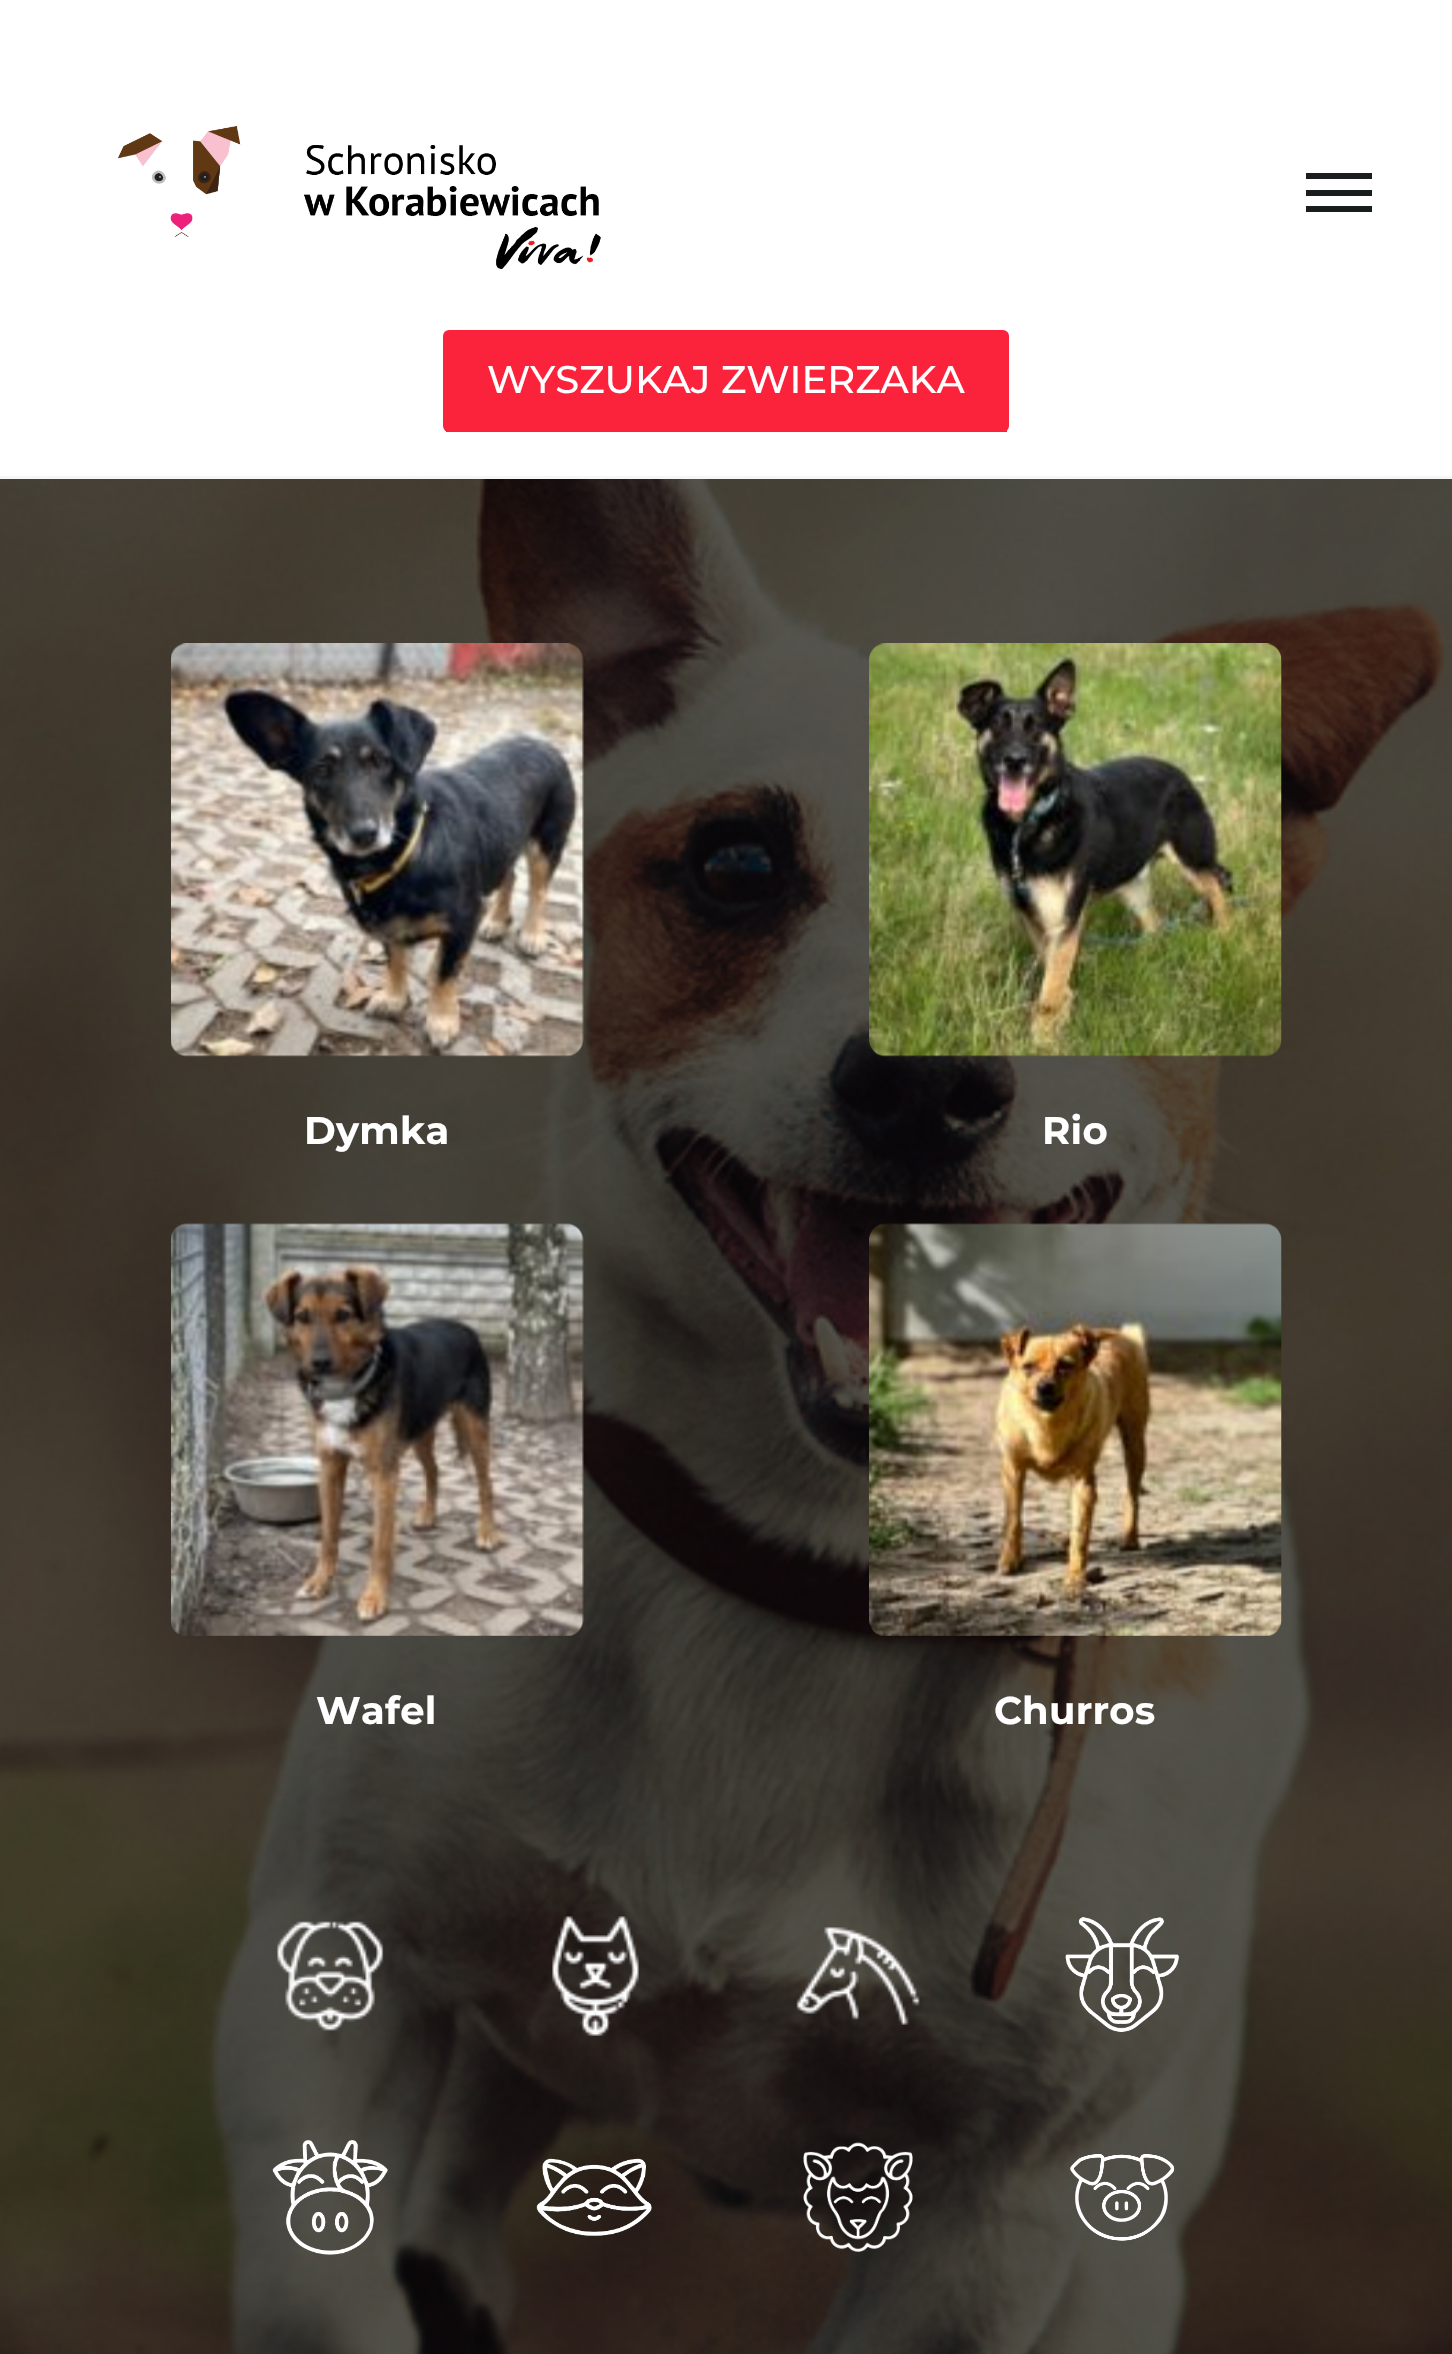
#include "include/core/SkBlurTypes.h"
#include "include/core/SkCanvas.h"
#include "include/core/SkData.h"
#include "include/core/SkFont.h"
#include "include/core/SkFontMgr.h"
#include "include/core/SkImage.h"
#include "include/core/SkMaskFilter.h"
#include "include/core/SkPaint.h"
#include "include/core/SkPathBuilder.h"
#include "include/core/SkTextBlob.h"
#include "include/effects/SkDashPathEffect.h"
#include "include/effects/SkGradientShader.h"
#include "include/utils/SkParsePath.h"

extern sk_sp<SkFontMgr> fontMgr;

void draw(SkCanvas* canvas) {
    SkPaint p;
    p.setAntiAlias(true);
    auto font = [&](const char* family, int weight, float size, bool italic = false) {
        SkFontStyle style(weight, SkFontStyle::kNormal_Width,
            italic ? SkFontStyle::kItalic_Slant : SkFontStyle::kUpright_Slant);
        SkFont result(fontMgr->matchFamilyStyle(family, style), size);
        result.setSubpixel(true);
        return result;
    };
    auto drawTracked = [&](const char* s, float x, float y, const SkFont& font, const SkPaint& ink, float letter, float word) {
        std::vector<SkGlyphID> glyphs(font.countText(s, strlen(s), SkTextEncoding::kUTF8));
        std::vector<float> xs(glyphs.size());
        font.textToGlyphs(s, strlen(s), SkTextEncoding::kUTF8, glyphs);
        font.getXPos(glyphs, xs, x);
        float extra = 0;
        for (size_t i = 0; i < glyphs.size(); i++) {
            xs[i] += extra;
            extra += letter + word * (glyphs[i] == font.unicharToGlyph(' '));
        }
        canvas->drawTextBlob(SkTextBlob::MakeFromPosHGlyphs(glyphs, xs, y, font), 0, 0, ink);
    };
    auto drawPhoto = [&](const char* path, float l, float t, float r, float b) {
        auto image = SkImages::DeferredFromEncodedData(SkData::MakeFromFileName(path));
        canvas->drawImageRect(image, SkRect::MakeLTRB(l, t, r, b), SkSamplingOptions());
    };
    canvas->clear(0xFFFFFFFF);
    p.setColor(0xFFF4F7F6);
    canvas->drawRect(SkRect::MakeLTRB(0, 476, 1452, 479), p);
    drawPhoto("media/1.png", 118, 125, 601, 270);
    {
        const struct { float l, t, r, b; SkColor color; } items[] = {
            {1306, 190, 1372, 196, 0xFF1A1D1E},
            {1306, 173, 1372, 179, 0xFF1A1D1E},
            {1306, 206, 1372, 212, 0xFF1A1D1E},
        };
        for (auto [l, t, r, b, color] : items) {
            p.setColor(color);
            canvas->drawRect(SkRect::MakeLTRB(l, t, r, b), p);
        }
    }
    p.setColor(0xFFFB223C);
    canvas->drawRoundRect(SkRect::MakeLTRB(443, 330, 1009, 432), 6, 6, p);
    canvas->drawRect(SkRect::MakeLTRB(446, 430, 1007, 432), p);
    auto font1 = font("Montserrat", 500, 38.5f);
    p.setColor(0xFFFFFFFF);
    canvas->drawString("WYSZUKAJ ZWIERZAKA", 487, 393, font1, p);
    drawPhoto("media/2.png", 0, 479, 1452, 2354);
    drawPhoto("media/3.png", 171, 643, 584, 1057);
    auto font2 = font("Montserrat", 700, 38.5f);
    drawTracked("Dymka", 304, 1144, font2, p, 0.25f, 0);
    drawPhoto("media/4.png", 869, 643, 1282, 1057);
    drawTracked("Rio", 1042, 1144, font2, p, 0.25f, 0);
    drawPhoto("media/5.png", 171, 1223, 584, 1636);
    drawTracked("Wafel", 316, 1724, font2, p, 0.25f, 0);
    drawPhoto("media/6.png", 869, 1223, 1282, 1636);
    drawTracked("Churros", 994, 1724, font2, p, 0.25f, 0);
    drawPhoto("media/7.png", 277, 1921, 384, 2031);
    drawPhoto("media/8.png", 552, 1916, 639, 2036);
    drawPhoto("media/9.png", 796, 1927, 920, 2025);
    drawPhoto("media/10.png", 1065, 1917, 1179, 2032);
    drawPhoto("media/11.png", 272, 2140, 388, 2255);
    drawPhoto("media/12.png", 536, 2158, 652, 2236);
    drawPhoto("media/13.png", 803, 2142, 913, 2252);
    drawPhoto("media/14.png", 1070, 2154, 1175, 2241);
}
